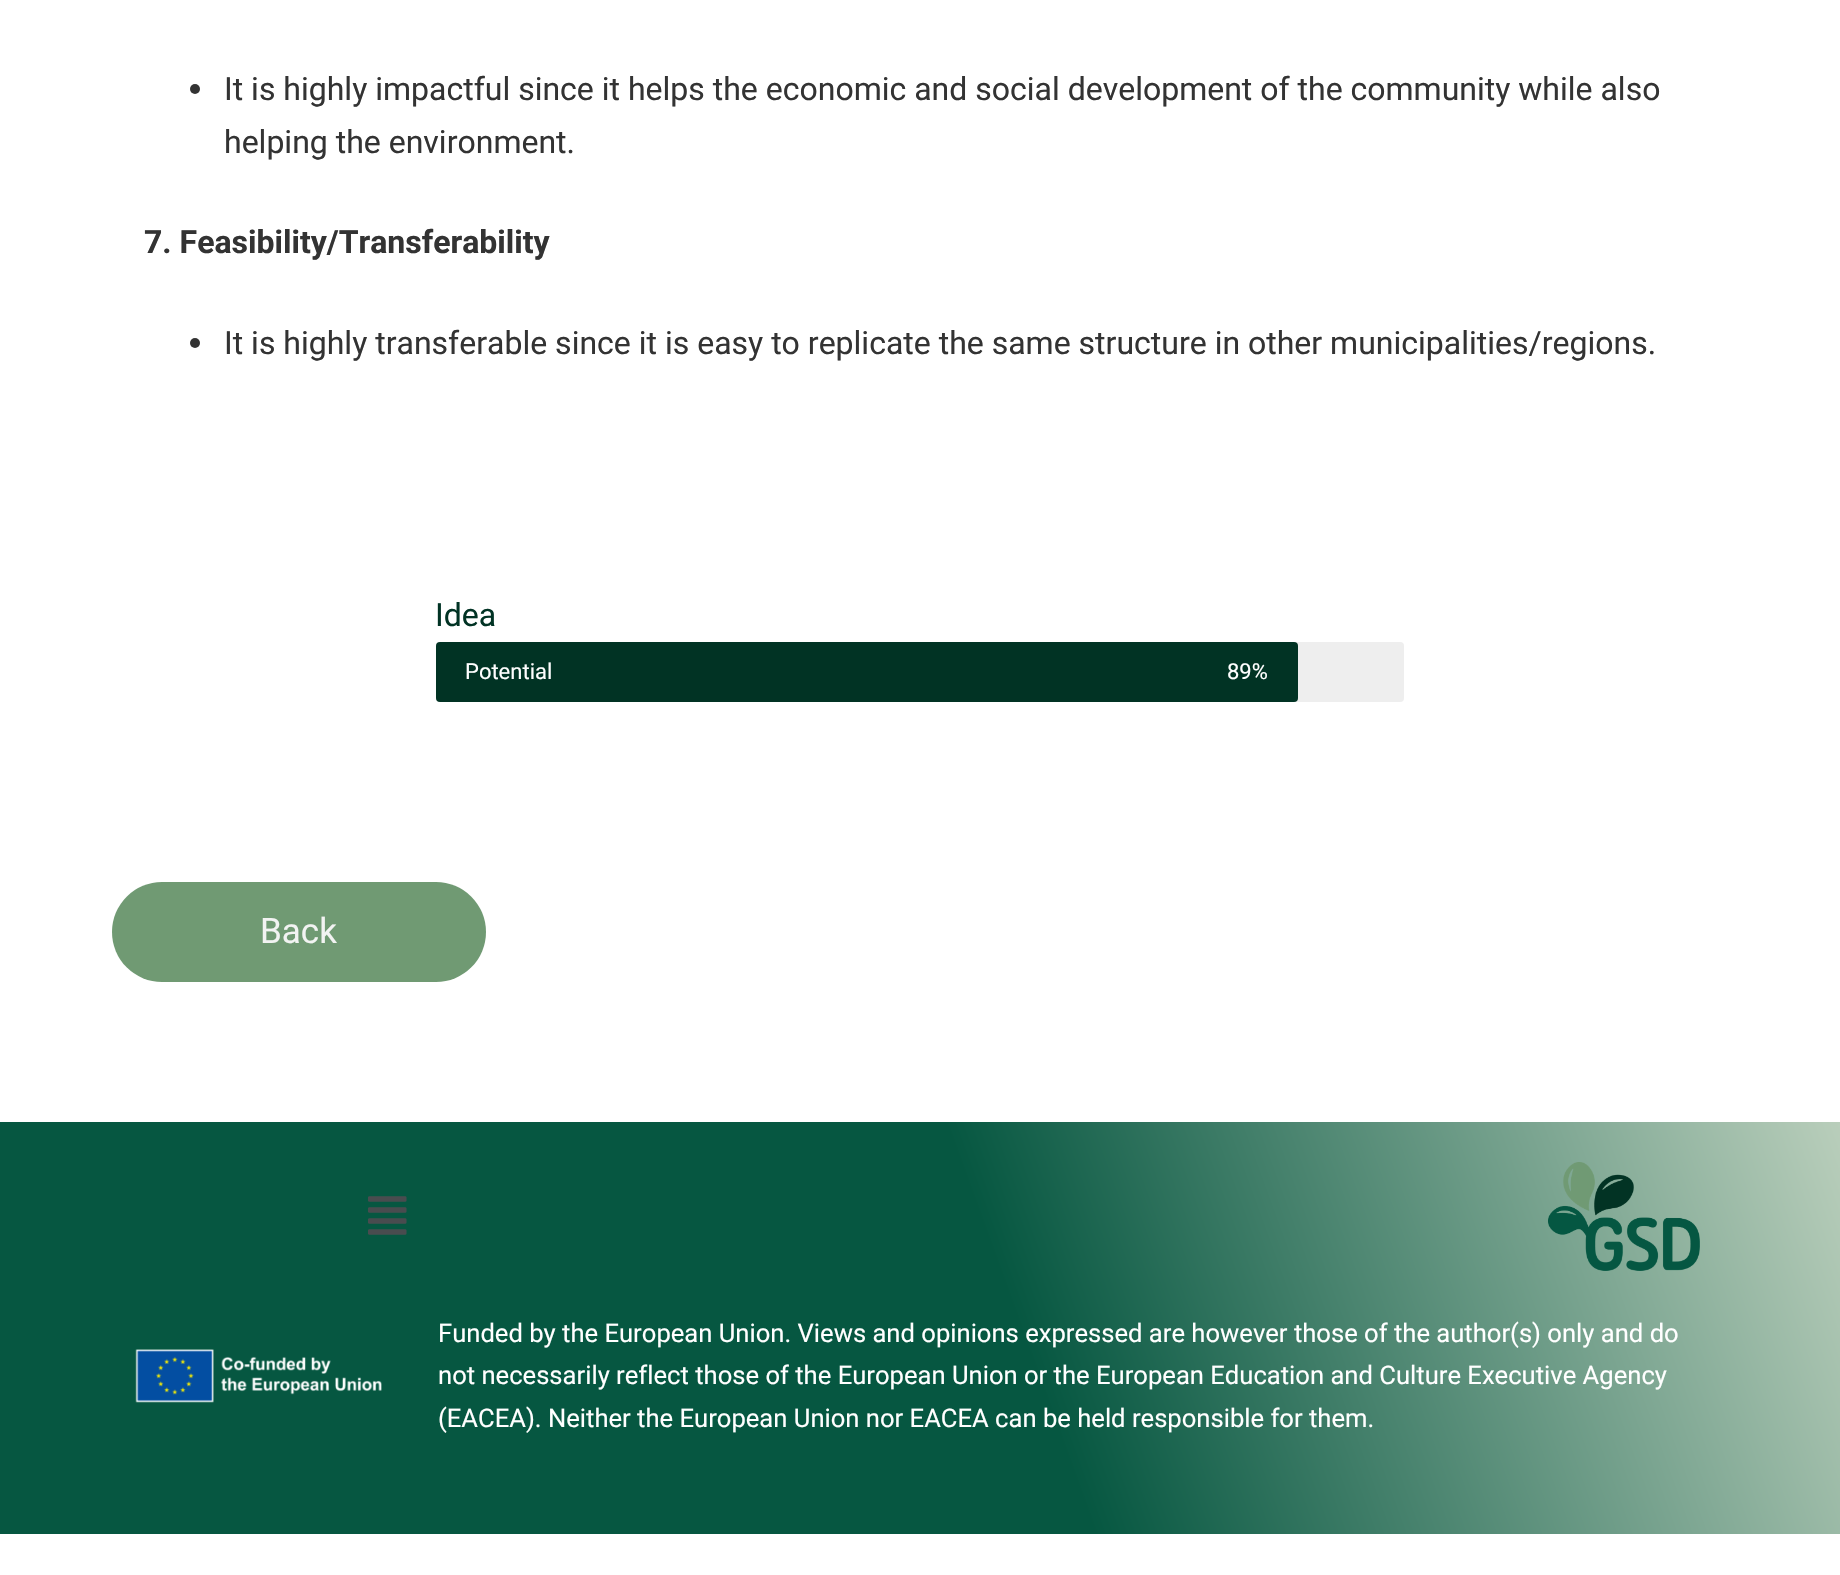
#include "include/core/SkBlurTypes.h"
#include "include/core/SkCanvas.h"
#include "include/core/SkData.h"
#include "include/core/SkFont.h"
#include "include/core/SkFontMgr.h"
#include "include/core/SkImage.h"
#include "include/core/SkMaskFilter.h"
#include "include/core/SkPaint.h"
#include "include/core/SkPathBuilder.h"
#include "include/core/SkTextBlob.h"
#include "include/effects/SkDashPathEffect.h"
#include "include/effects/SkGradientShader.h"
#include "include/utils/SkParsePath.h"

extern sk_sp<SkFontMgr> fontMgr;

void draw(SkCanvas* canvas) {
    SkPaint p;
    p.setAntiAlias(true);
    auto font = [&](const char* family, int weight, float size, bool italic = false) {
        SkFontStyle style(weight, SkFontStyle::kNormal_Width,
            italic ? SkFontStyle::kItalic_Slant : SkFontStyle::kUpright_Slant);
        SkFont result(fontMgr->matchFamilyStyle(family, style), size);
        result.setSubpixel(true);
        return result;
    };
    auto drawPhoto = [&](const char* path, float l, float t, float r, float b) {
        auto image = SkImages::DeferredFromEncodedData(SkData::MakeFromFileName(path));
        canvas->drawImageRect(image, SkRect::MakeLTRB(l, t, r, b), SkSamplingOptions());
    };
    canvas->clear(0xFFFFFFFF);
    p.setColor(0xFF333333);
    canvas->drawCircle(195, 89, 5, p);
    auto font1 = font("Roboto", 400, 32);
    canvas->drawString("It is highly impactful since it helps the economic and social development of the community while also", 224, 100, font1, p);
    canvas->drawString("helping the environment.", 224, 153, font1, p);
    auto font2 = font("Roboto", 700, 32);
    canvas->drawString("7. Feasibility/Transferability", 144, 253, font2, p);
    canvas->drawCircle(195, 343, 5, p);
    canvas->drawString("It is highly transferable since it is easy to replicate the same structure in other municipalities/regions.", 224, 354, font1, p);
    p.setColor(0xFF013324);
    canvas->drawString("Idea", 435, 626, font1, p);
    p.setColor(0xFFEEEEEE);
    canvas->drawRoundRect(SkRect::MakeLTRB(436, 642, 1404, 702), 4, 4, p);
    p.setColor(0xFF013324);
    canvas->drawRoundRect(SkRect::MakeLTRB(436, 642, 1298, 702), 4, 4, p);
    auto font3 = font("Roboto", 400, 22);
    p.setColor(0xFFFFFFFF);
    canvas->drawString("Potential", 465, 679, font3, p);
    canvas->drawString("89%", 1227, 679, font3, p);
    p.setColor(0xFF709A73);
    canvas->drawRoundRect(SkRect::MakeLTRB(112, 882, 486, 982), 50, 50, p);
    auto font4 = font("Roboto", 400, 35);
    p.setColor(0xFFF2F3F2);
    canvas->drawString("Back", 260, 943, font4, p);
    {
        const SkColor colors[] = {0xFF065741, 0xFFB9CEBB};
        const float stops[] = {0.55f, 1};
        const SkPoint ends[] = {{41, 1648}, {1799, 1008}};
        p.setShader(SkGradientShader::MakeLinear(ends, colors, stops, 2, SkTileMode::kClamp));
        p.setAlpha(255);
    }
    canvas->drawRect(SkRect::MakeLTRB(0, 1122, 1840, 1534), p);
    drawPhoto("media/1.png", 368, 1196, 407, 1235);
    drawPhoto("media/2.png", 1548, 1162, 1700, 1271);
    drawPhoto("media/3.png", 135, 1349, 382, 1403);
    auto font5 = font("Roboto", 400, 25.6f);
    p.setShader(nullptr);
    p.setColor(0xFFFFFFFF);
    {
        const struct { const char* s; float x, y; } items[] = {
            {"Funded by the European Union. Views and opinions expressed are however those of the author(s) only and do", 438, 1342},
            {"not necessarily reflect those of the European Union or the European Education and Culture Executive Agency", 438, 1384},
            {"(EACEA). Neither the European Union nor EACEA can be held responsible for them.", 438, 1427},
        };
        for (auto [s, x, y] : items) {
            canvas->drawString(s, x, y, font5, p);
        }
    }
}
